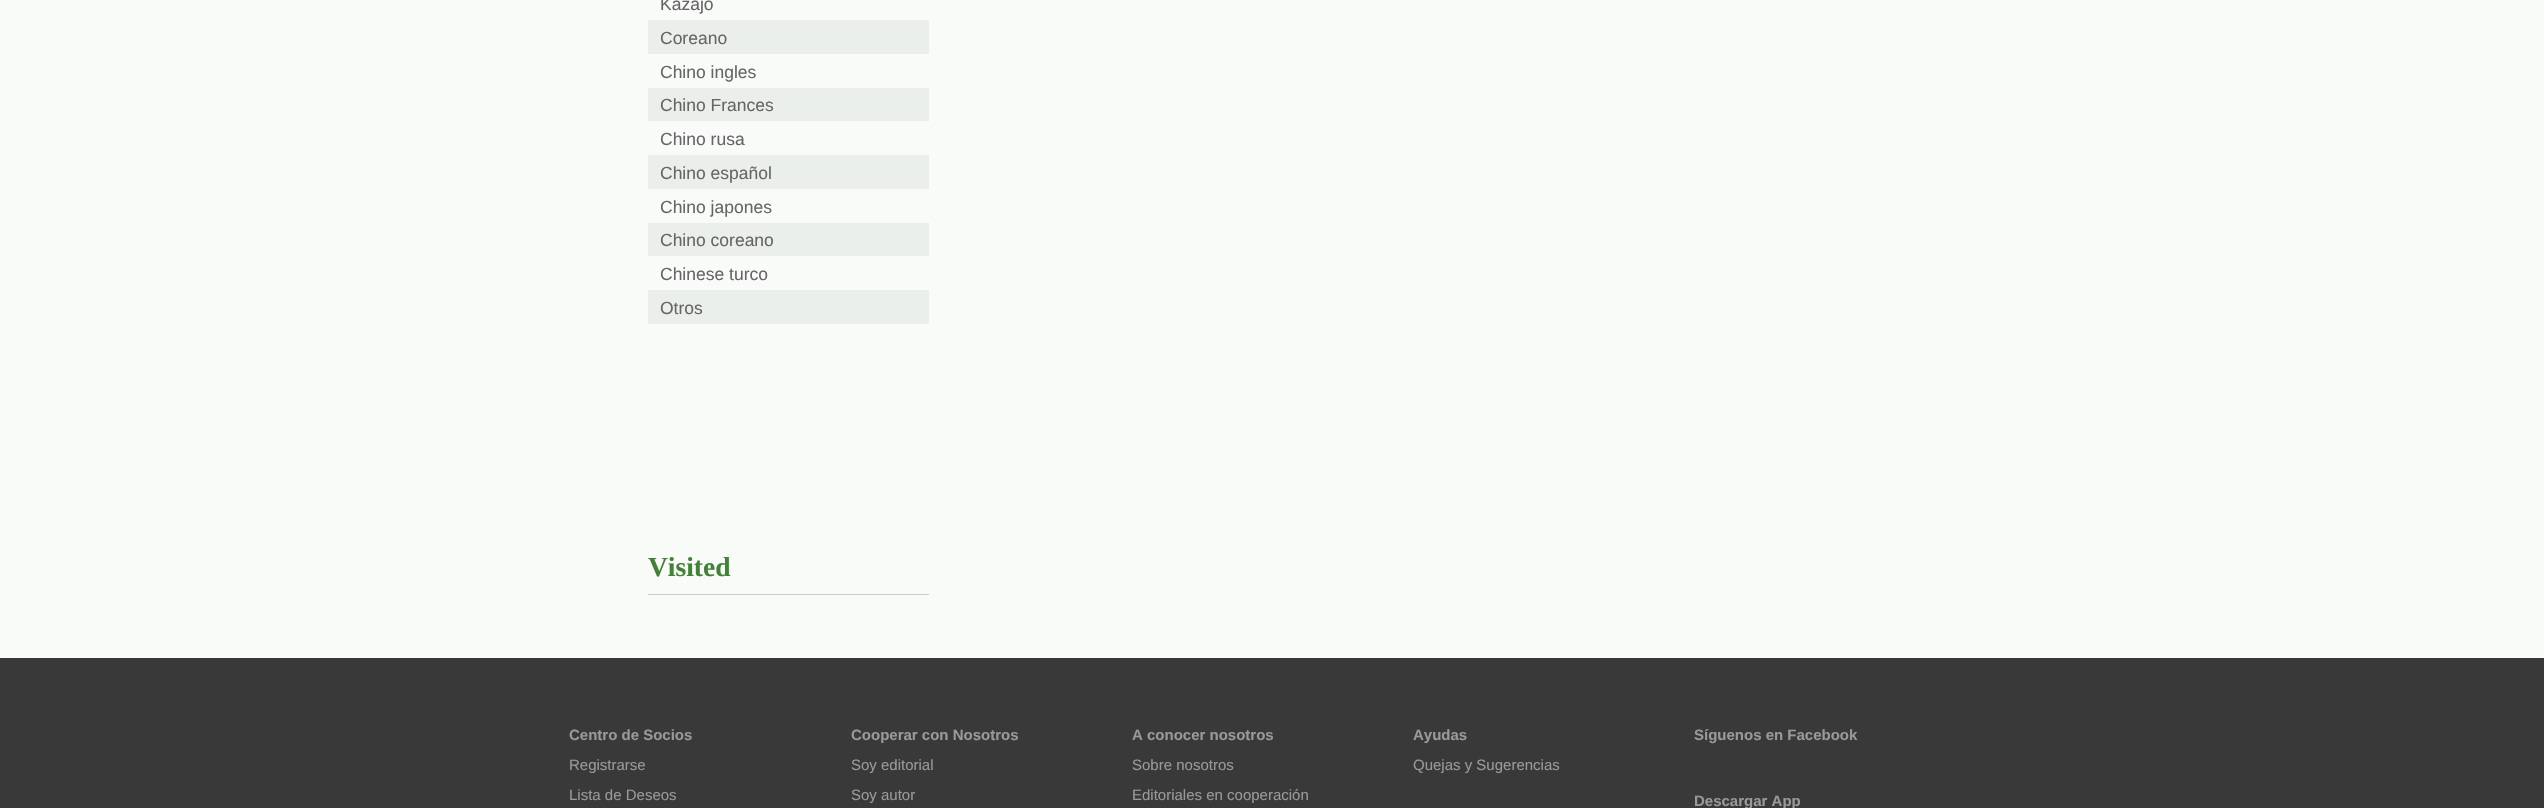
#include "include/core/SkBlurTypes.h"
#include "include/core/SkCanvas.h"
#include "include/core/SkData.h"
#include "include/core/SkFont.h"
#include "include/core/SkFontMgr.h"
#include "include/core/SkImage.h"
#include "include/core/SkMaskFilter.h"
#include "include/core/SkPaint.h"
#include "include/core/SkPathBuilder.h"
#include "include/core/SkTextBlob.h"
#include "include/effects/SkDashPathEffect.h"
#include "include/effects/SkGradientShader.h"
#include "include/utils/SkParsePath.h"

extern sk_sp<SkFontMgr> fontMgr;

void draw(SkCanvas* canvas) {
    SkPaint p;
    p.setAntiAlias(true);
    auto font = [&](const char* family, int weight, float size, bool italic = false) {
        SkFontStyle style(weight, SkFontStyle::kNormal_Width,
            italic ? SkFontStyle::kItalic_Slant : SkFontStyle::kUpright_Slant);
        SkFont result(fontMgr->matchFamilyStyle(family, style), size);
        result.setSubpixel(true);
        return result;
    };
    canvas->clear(0xFFF9FBF9);
    auto font1 = font("Liberation Sans", 400, 17.5f);
    p.setColor(0xFF666666);
    canvas->drawString("Kazajo", 660, 10, font1, p);
    p.setColor(0xFFEBEFEB);
    canvas->drawRect(SkRect::MakeLTRB(648, 20, 929, 54), p);
    p.setColor(0xFF666666);
    canvas->drawString("Coreano", 660, 44, font1, p);
    canvas->drawString("Chino ingles", 660, 78, font1, p);
    p.setColor(0xFFEBEFEB);
    canvas->drawRect(SkRect::MakeLTRB(648, 88, 929, 121), p);
    p.setColor(0xFF666666);
    canvas->drawString("Chino Frances", 660, 111, font1, p);
    canvas->drawString("Chino rusa", 660, 145, font1, p);
    p.setColor(0xFFEBEFEB);
    canvas->drawRect(SkRect::MakeLTRB(648, 155, 929, 189), p);
    p.setColor(0xFF666666);
    canvas->drawString("Chino español", 660, 179, font1, p);
    canvas->drawString("Chino japones", 660, 213, font1, p);
    p.setColor(0xFFEBEFEB);
    canvas->drawRect(SkRect::MakeLTRB(648, 223, 929, 256), p);
    p.setColor(0xFF666666);
    canvas->drawString("Chino coreano", 660, 246, font1, p);
    canvas->drawString("Chinese turco", 660, 280, font1, p);
    p.setColor(0xFFEBEFEB);
    canvas->drawRect(SkRect::MakeLTRB(648, 290, 929, 324), p);
    p.setColor(0xFF666666);
    canvas->drawString("Otros", 660, 314, font1, p);
    p.setColor(0xFFCBCBCD);
    canvas->drawRect(SkRect::MakeLTRB(648, 594, 929, 595), p);
    auto font2 = font("Liberation Serif", 700, 27.5f);
    p.setColor(0xFF428237);
    canvas->drawString("Visited", 648, 576, font2, p);
    p.setColor(0xFF393939);
    canvas->drawRect(SkRect::MakeLTRB(0, 658, 2544, 808), p);
    auto font3 = font("Liberation Sans", 700, 15);
    p.setColor(0xFF999999);
    canvas->drawString("Centro de Socios", 569, 740, font3, p);
    auto font4 = font("Liberation Sans", 400, 15);
    canvas->drawString("Registrarse", 569, 770, font4, p);
    canvas->drawString("Lista de Deseos", 569, 800, font4, p);
    canvas->drawString("Cooperar con Nosotros", 851, 740, font3, p);
    canvas->drawString("Soy editorial", 851, 770, font4, p);
    canvas->drawString("Soy autor", 851, 800, font4, p);
    canvas->drawString("A conocer nosotros", 1132, 740, font3, p);
    canvas->drawString("Sobre nosotros", 1132, 770, font4, p);
    canvas->drawString("Editoriales en cooperación", 1132, 800, font4, p);
    canvas->drawString("Ayudas", 1413, 740, font3, p);
    canvas->drawString("Quejas y Sugerencias", 1413, 770, font4, p);
    canvas->drawString("Síguenos en Facebook", 1694, 740, font3, p);
    canvas->drawString("Descargar App", 1694, 806, font3, p);
}
